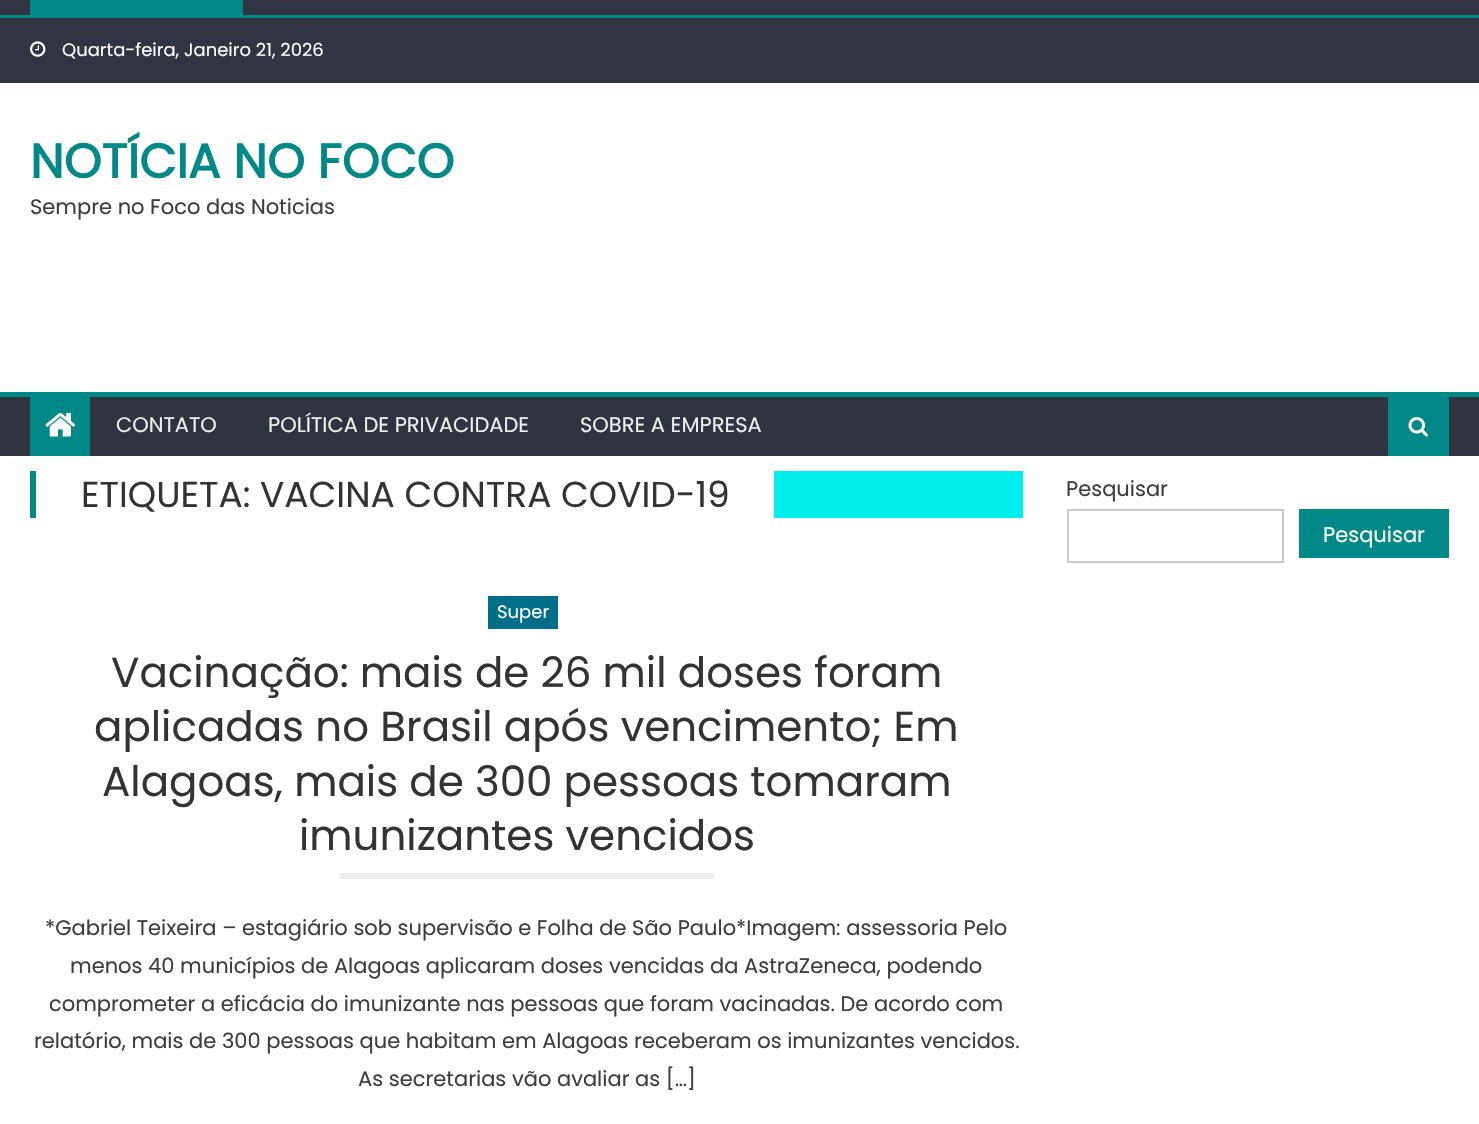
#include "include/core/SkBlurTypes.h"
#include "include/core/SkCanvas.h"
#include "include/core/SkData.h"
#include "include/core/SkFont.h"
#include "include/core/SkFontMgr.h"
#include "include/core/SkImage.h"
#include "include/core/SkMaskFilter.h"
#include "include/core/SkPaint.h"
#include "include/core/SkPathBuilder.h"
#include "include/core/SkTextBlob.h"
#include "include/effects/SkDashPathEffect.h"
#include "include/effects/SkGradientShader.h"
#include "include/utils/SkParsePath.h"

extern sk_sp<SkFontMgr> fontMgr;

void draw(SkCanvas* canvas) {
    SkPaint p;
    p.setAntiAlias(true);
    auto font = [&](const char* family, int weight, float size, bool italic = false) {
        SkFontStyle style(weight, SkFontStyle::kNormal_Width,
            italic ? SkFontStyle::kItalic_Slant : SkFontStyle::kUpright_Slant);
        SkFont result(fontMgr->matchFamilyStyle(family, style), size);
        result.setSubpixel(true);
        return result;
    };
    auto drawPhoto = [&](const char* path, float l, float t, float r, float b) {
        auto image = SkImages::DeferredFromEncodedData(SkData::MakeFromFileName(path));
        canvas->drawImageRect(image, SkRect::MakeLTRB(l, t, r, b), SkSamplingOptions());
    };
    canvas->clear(0xFFFFFFFF);
    {
        const struct { float l, t, r, b; SkColor color; } items[] = {
            {0, 0, 1479, 15, 0xFF313541},
            {30, 0, 243, 15, 0xFF008987},
            {0, 18, 1479, 83, 0xFF313541},
            {0, 15, 1479, 18, 0xFF008987},
        };
        for (auto [l, t, r, b, color] : items) {
            p.setColor(color);
            canvas->drawRect(SkRect::MakeLTRB(l, t, r, b), p);
        }
    }
    drawPhoto("media/1.png", 30, 41, 46, 57);
    auto font1 = font("Poppins", 400, 18);
    p.setColor(0xFFFFFFFF);
    canvas->drawString("Quarta-feira, Janeiro 21, 2026", 62, 56, font1, p);
    auto font2 = font("Poppins", 700, 48);
    p.setColor(0xFF008987);
    canvas->drawString("NOTÍCIA NO FOCO", 30, 178, font2, p);
    auto font3 = font("Poppins", 400, 21);
    p.setColor(0xFF3D3D3D);
    canvas->drawString("Sempre no Foco das Noticias", 30, 214, font3, p);
    {
        const struct { float l, t, r, b; SkColor color; } items[] = {
            {0, 397, 1479, 456, 0xFF303440},
            {0, 392, 1479, 397, 0xFF008987},
            {30, 397, 90, 456, 0xFF008987},
        };
        for (auto [l, t, r, b, color] : items) {
            p.setColor(color);
            canvas->drawRect(SkRect::MakeLTRB(l, t, r, b), p);
        }
    }
    drawPhoto("media/2.png", 45, 412, 76, 437);
    p.setColor(0xFFEEEEEE);
    {
        const struct { const char* s; float x, y; } items[] = {
            {"CONTATO", 116, 432},
            {"POLÍTICA DE PRIVACIDADE", 268, 432},
            {"SOBRE A EMPRESA", 580, 432},
        };
        for (auto [s, x, y] : items) {
            canvas->drawString(s, x, y, font3, p);
        }
    }
    p.setColor(0xFF008987);
    canvas->drawRect(SkRect::MakeLTRB(1388, 397, 1449, 456), p);
    drawPhoto("media/3.png", 1408, 417, 1428, 437);
    p.setColor(0xFF00EFEC);
    canvas->drawRect(SkRect::MakeLTRB(774, 471, 1023, 518), p);
    p.setColor(0xFF008987);
    canvas->drawRect(SkRect::MakeLTRB(30, 471, 36, 518), p);
    auto font4 = font("Poppins", 400, 36);
    p.setColor(0xFF333333);
    canvas->drawString("ETIQUETA: VACINA CONTRA COVID-19", 81, 507, font4, p);
    p.setColor(0xFF006D89);
    canvas->drawRect(SkRect::MakeLTRB(488, 596, 558, 629), p);
    p.setColor(0xFFFFFFFF);
    canvas->drawString("Super", 497, 618, font1, p);
    auto font5 = font("Poppins", 400, 42);
    p.setColor(0xFF333333);
    {
        const struct { const char* s; float x, y; } items[] = {
            {"Vacinação: mais de 26 mil doses foram", 111, 687},
            {"aplicadas no Brasil após vencimento; Em", 94, 741},
            {"Alagoas, mais de 300 pessoas tomaram", 102, 796},
            {"imunizantes vencidos", 299, 850},
        };
        for (auto [s, x, y] : items) {
            canvas->drawString(s, x, y, font5, p);
        }
    }
    p.setColor(0xFFEEEEEE);
    canvas->drawRect(SkRect::MakeLTRB(339, 873, 714, 879), p);
    p.setColor(0xFF3D3D3D);
    {
        const struct { const char* s; float x, y; } items[] = {
            {"*Gabriel Teixeira – estagiário sob supervisão e Folha de São Paulo*Imagem: assessoria Pelo", 45, 935},
            {"menos 40 municípios de Alagoas aplicaram doses vencidas da AstraZeneca, podendo", 70, 973},
            {"comprometer a eficácia do imunizante nas pessoas que foram vacinadas. De acordo com", 49, 1011},
            {"relatório, mais de 300 pessoas que habitam em Alagoas receberam os imunizantes vencidos.", 34, 1048},
            {"As secretarias vão avaliar as […]", 358, 1086},
            {"Pesquisar", 1066, 496},
        };
        for (auto [s, x, y] : items) {
            canvas->drawString(s, x, y, font3, p);
        }
    }
    p.setStyle(SkPaint::kStroke_Style);
    p.setStrokeWidth(2);
    p.setColor(0xFFCCCCCC);
    canvas->drawRect(SkRect::MakeLTRB(1068, 510, 1283, 562), p);
    p.setStyle(SkPaint::kFill_Style);
    p.setColor(0xFF008987);
    canvas->drawRect(SkRect::MakeLTRB(1299, 509, 1449, 558), p);
    p.setColor(0xFFFFFFFF);
    canvas->drawString("Pesquisar", 1323, 542, font3, p);
}
